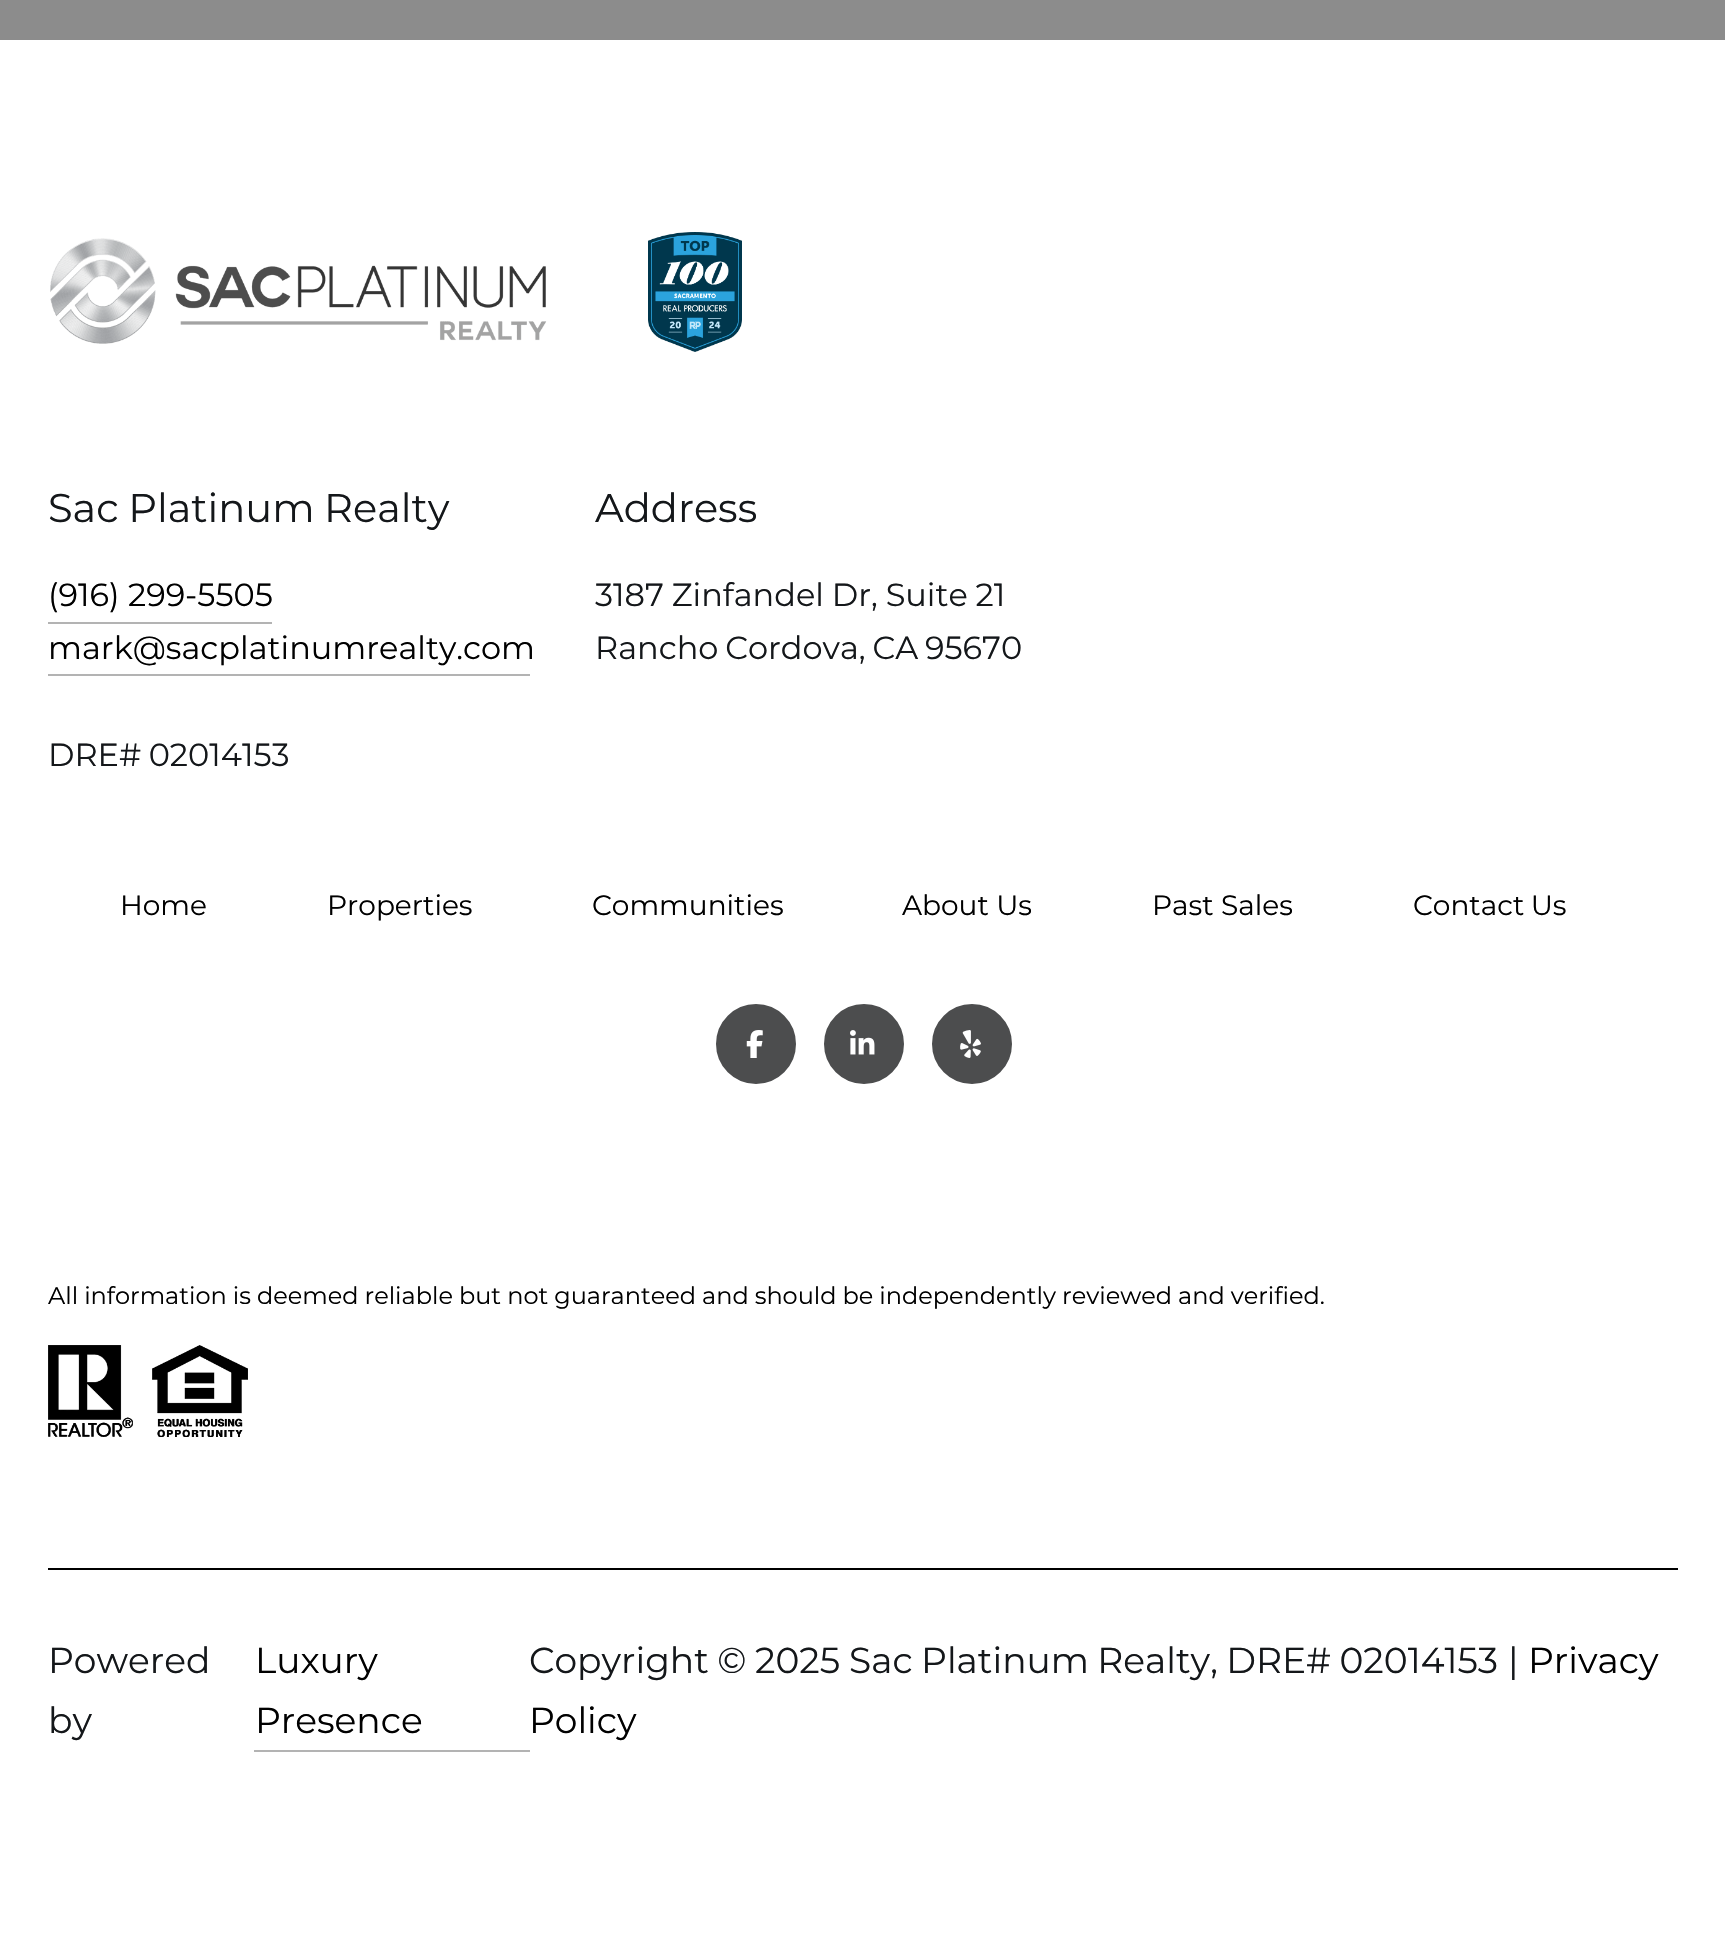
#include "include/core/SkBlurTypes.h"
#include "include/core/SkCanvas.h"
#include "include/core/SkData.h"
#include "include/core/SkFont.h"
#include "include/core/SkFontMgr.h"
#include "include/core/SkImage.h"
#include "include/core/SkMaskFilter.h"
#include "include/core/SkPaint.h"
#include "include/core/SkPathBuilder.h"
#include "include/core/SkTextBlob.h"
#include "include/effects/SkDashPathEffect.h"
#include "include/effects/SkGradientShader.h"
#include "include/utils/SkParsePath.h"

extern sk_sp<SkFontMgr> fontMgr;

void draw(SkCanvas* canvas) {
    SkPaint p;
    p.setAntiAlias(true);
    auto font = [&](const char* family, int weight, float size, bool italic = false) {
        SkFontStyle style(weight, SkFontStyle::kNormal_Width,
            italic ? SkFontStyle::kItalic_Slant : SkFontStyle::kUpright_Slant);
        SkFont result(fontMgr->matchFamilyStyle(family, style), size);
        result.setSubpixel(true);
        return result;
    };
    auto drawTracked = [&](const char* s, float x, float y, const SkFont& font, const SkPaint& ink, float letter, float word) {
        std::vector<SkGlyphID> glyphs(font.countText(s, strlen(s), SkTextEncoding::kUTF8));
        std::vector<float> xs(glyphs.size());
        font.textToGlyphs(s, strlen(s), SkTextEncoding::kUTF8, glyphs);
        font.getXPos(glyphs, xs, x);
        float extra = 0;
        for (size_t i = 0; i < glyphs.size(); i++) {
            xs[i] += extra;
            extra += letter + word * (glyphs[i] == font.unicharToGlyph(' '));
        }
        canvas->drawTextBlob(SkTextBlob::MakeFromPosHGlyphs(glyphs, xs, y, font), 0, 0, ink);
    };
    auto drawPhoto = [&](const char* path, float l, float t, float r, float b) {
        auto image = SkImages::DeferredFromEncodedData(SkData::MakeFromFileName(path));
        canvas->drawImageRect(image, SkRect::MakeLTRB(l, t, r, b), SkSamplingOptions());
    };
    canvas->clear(0xFFFFFFFF);
    p.setColor(0xFF8C8C8C);
    canvas->drawRect(SkRect::MakeLTRB(0, 0, 1725, 40), p);
    drawPhoto("media/1.png", 50, 238, 547, 344);
    drawPhoto("media/2.png", 648, 232, 742, 352);
    auto font1 = font("Montserrat", 400, 40);
    p.setColor(0xFF14171A);
    drawTracked("Sac Platinum Realty", 48, 522, font1, p, 0, -1);
    auto font2 = font("Montserrat", 400, 32);
    p.setColor(0xFF000000);
    canvas->drawString("(916) 299-5505", 48, 606, font2, p);
    p.setColor(0xFFB3B3B3);
    canvas->drawRect(SkRect::MakeLTRB(48, 622, 272, 624), p);
    p.setColor(0xFF000000);
    canvas->drawString("mark@sacplatinumrealty.com", 48, 659, font2, p);
    p.setColor(0xFFB3B3B3);
    canvas->drawRect(SkRect::MakeLTRB(48, 674, 530, 676), p);
    p.setColor(0xFF14171A);
    drawTracked("DRE# 02014153", 48, 766, font2, p, 0, -1);
    canvas->drawString("Address", 595, 522, font1, p);
    drawTracked("3187 Zinfandel Dr, Suite 21", 595, 606, font2, p, 0, -0.5f);
    drawTracked("Rancho Cordova, CA 95670", 595, 659, font2, p, 0, -1.5f);
    auto font3 = font("Montserrat", 400, 28);
    p.setColor(0xFF000000);
    {
        const struct { const char* s; float x, y; } items[] = {
            {"Home", 120, 915},
            {"Properties", 327, 915},
            {"Communities", 592, 915},
            {"About Us", 902, 915},
            {"Past Sales", 1152, 915},
        };
        for (auto [s, x, y] : items) {
            canvas->drawString(s, x, y, font3, p);
        }
    }
    drawTracked("Contact Us", 1413, 915, font3, p, 0, -1);
    p.setColor(0xFF4C4D4E);
    canvas->drawCircle(756, 1044, 39, p);
    p.setStyle(SkPaint::kStroke_Style);
    p.setStrokeWidth(2);
    canvas->drawCircle(756, 1044, 39, p);
    drawPhoto("media/3.png", 746, 1030, 763, 1058);
    p.setStyle(SkPaint::kFill_Style);
    canvas->drawCircle(864, 1044, 39, p);
    p.setStyle(SkPaint::kStroke_Style);
    canvas->drawCircle(864, 1044, 39, p);
    drawPhoto("media/4.png", 850, 1030, 875, 1055);
    p.setStyle(SkPaint::kFill_Style);
    canvas->drawCircle(972, 1044, 39, p);
    p.setStyle(SkPaint::kStroke_Style);
    canvas->drawCircle(972, 1044, 39, p);
    drawPhoto("media/5.png", 960, 1030, 981, 1058);
    auto font4 = font("Montserrat", 400, 24);
    p.setStyle(SkPaint::kFill_Style);
    p.setColor(0xFF000000);
    drawTracked("All information is deemed reliable but not guaranteed and should be independently reviewed and verified.", 48, 1304, font4, p, 0, -0.25f);
    drawPhoto("media/6.png", 48, 1345, 248, 1437);
    canvas->drawRect(SkRect::MakeLTRB(48, 1568, 1678, 1570), p);
    auto font5 = font("Montserrat", 400, 36);
    p.setColor(0xFF14171A);
    canvas->drawString("Powered", 48, 1673, font5, p);
    canvas->drawString("by", 48, 1733, font5, p);
    p.setColor(0xFF000000);
    canvas->drawString("Luxury", 255, 1673, font5, p);
    canvas->drawString("Presence", 255, 1733, font5, p);
    p.setColor(0xFFB3B3B3);
    canvas->drawRect(SkRect::MakeLTRB(254, 1750, 530, 1752), p);
    p.setColor(0xFF14171A);
    drawTracked("Copyright ©", 529, 1673, font5, p, 0, -1);
    canvas->drawString("2025", 755, 1673, font5, p);
    drawTracked("Sac Platinum Realty, DRE# 02014153", 849, 1673, font5, p, 0, -1);
    canvas->drawString("|", 1508, 1673, font5, p);
    p.setColor(0xFF000000);
    canvas->drawString("Privacy", 1528, 1673, font5, p);
    canvas->drawString("Policy", 529, 1733, font5, p);
}
